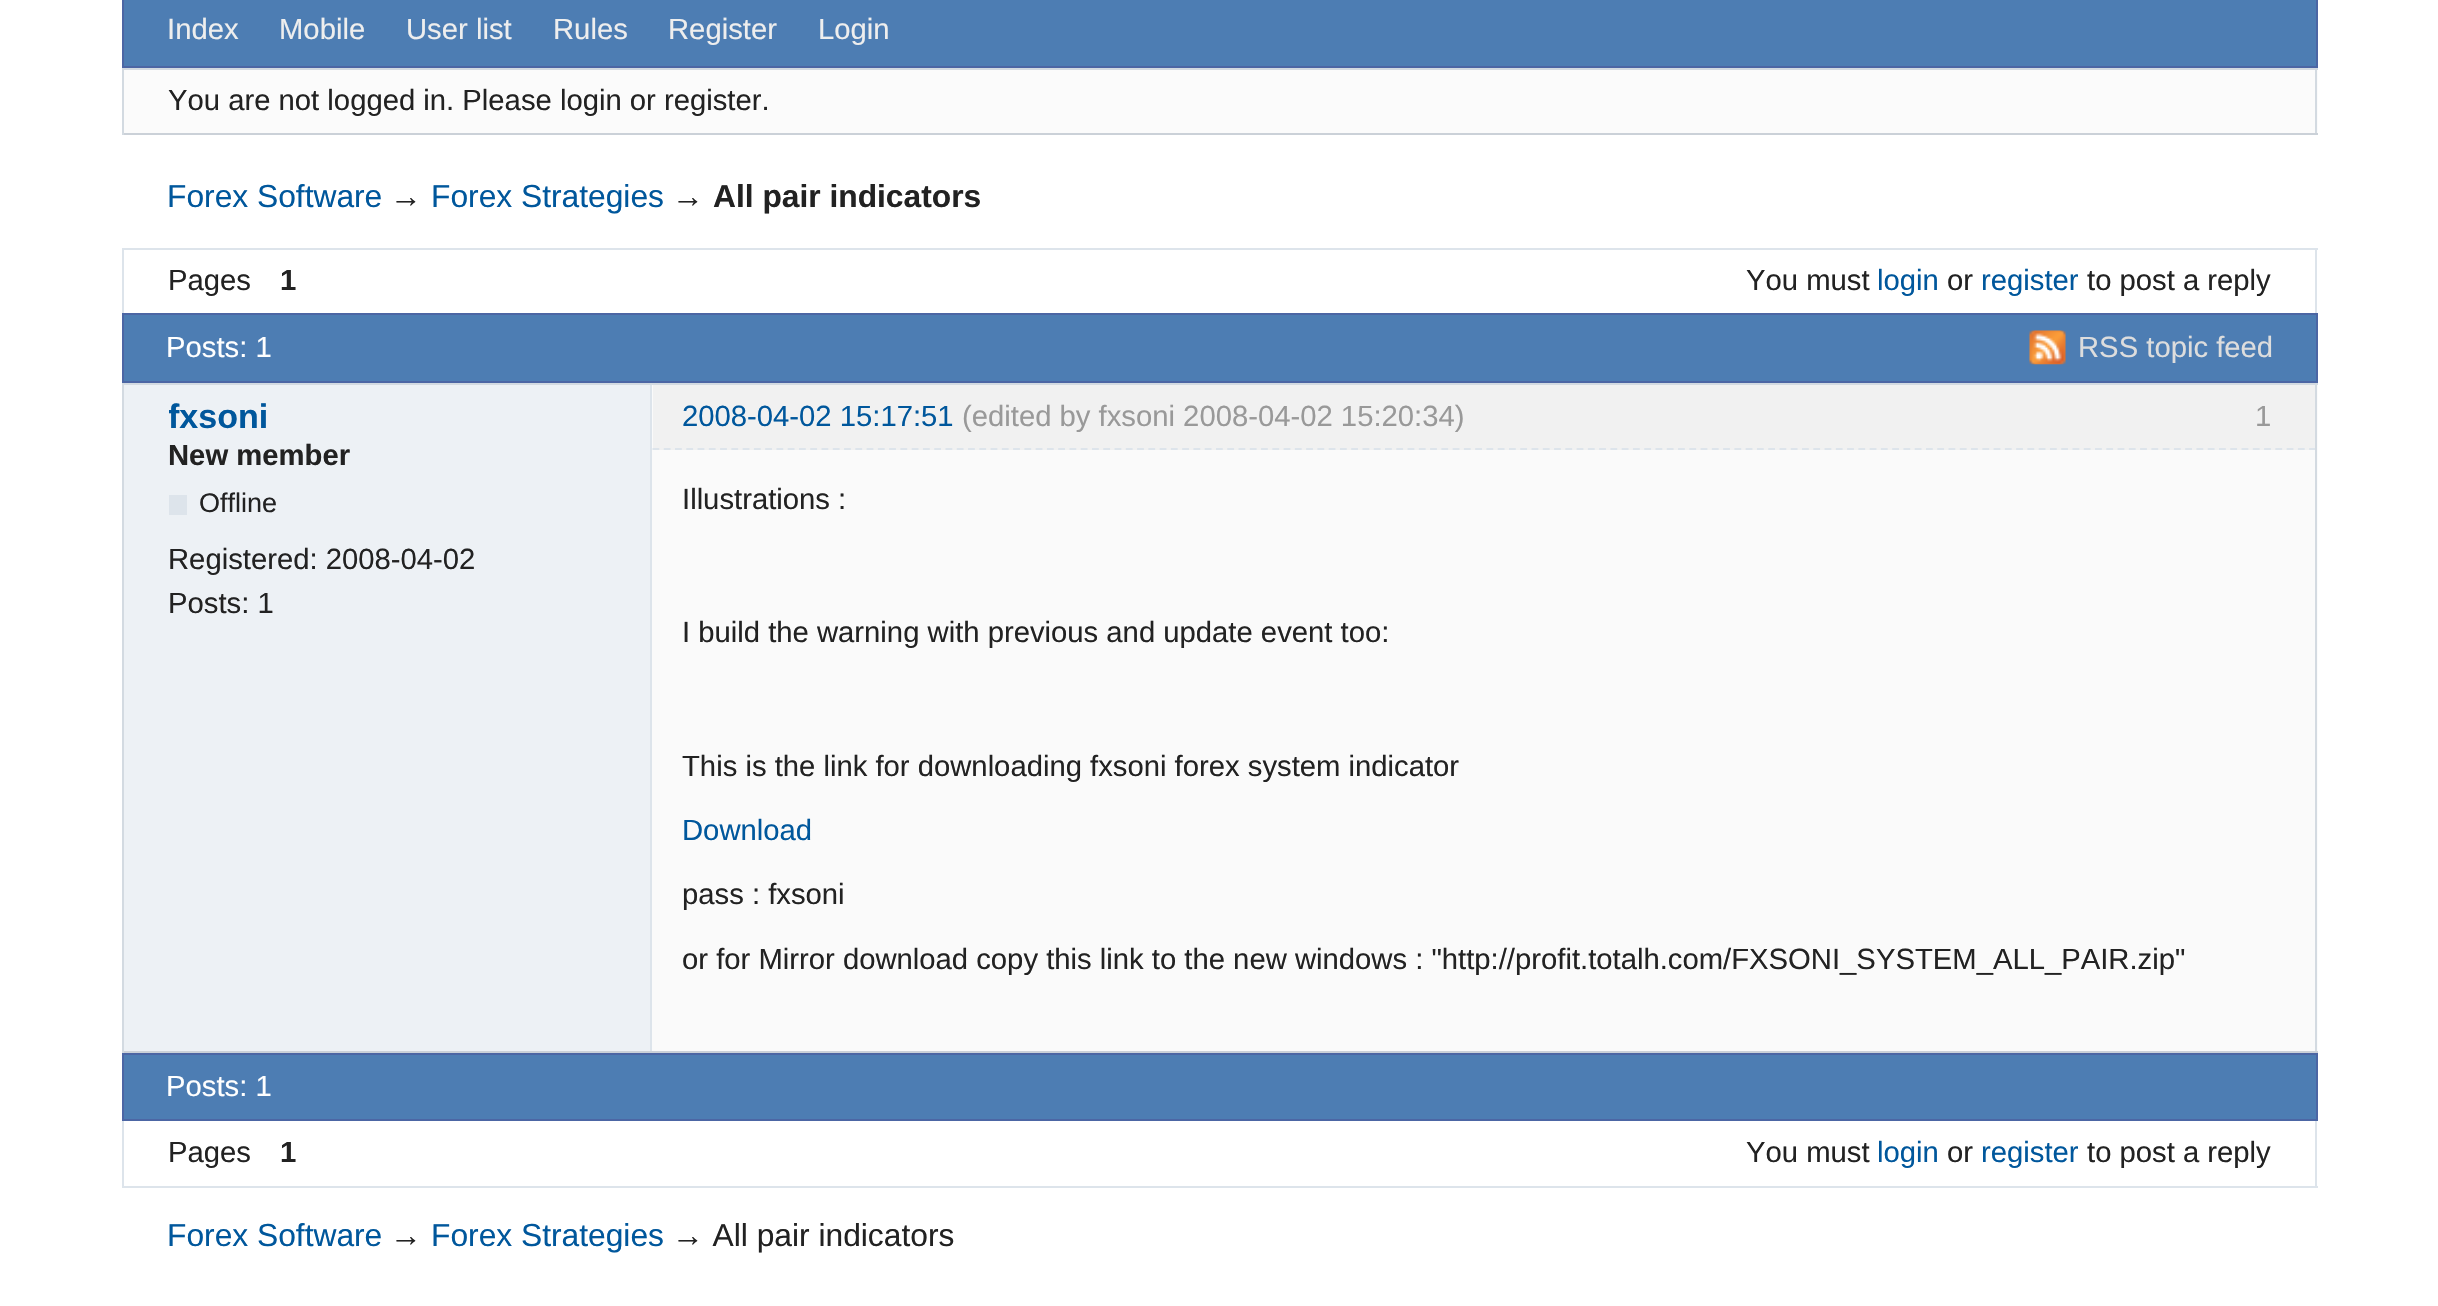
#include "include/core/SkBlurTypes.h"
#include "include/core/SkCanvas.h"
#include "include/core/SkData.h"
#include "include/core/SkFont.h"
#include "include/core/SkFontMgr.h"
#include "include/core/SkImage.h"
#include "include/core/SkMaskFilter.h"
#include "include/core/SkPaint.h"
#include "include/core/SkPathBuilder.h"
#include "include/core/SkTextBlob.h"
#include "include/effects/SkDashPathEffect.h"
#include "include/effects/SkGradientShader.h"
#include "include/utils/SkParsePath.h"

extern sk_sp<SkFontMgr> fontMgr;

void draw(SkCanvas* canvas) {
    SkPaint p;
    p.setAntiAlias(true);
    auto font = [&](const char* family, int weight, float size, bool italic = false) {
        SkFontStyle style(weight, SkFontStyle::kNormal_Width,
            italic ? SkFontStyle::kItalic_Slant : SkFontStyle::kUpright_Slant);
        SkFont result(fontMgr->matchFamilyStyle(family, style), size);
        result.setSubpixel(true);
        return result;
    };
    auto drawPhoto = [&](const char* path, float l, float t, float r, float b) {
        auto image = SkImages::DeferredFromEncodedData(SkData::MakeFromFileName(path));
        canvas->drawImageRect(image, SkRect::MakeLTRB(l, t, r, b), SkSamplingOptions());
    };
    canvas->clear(0xFFFFFFFF);
    p.setColor(0xFF4D7DB3);
    canvas->drawRect(SkRect::MakeLTRB(123, -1, 2317, 67), p);
    p.setStyle(SkPaint::kStroke_Style);
    p.setStrokeWidth(2);
    p.setColor(0xFF4C66A4);
    canvas->drawRect(SkRect::MakeLTRB(123, -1, 2317, 67), p);
    auto font1 = font("Liberation Sans", 400, 29.25f);
    p.setStyle(SkPaint::kFill_Style);
    p.setColor(0xFFEEEEEE);
    {
        const struct { const char* s; float x, y; } items[] = {
            {"Index", 167, 39},
            {"Mobile", 279, 39},
            {"User list", 406, 39},
            {"Rules", 553, 39},
            {"Register", 668, 39},
            {"Login", 818, 39},
        };
        for (auto [s, x, y] : items) {
            canvas->drawString(s, x, y, font1, p);
        }
    }
    {
        const struct { float l, t, r, b; SkColor color; } items[] = {
            {124, 70, 2318, 133, 0xFFFBFBFB},
            {122, 68, 2318, 70, 0xFFD3DAE1},
            {2315, 68, 2317, 135, 0xFFD3DAE1},
            {122, 133, 2318, 135, 0xFFCBD1D8},
            {122, 68, 124, 135, 0xFFD3DAE1},
        };
        for (auto [l, t, r, b, color] : items) {
            p.setColor(color);
            canvas->drawRect(SkRect::MakeLTRB(l, t, r, b), p);
        }
    }
    p.setColor(0xFF222222);
    canvas->drawString("You are not logged in. Please login or register.", 168, 110, font1, p);
    auto font2 = font("Liberation Sans", 400, 31.75f);
    p.setColor(0xFF00579C);
    canvas->drawString("Forex Software", 167, 207, font2, p);
    p.setColor(0xFF222222);
    canvas->drawString("→", 390, 207, font2, p);
    p.setColor(0xFF00579C);
    canvas->drawString("Forex Strategies", 431, 207, font2, p);
    p.setColor(0xFF222222);
    canvas->drawString("→", 672, 207, font2, p);
    auto font3 = font("Liberation Sans", 700, 31.75f);
    canvas->drawString("All pair indicators", 713, 207, font3, p);
    {
        const struct { float l, t, r, b; SkColor color; } items[] = {
            {122, 248, 2318, 250, 0xFFDDE4EB},
            {2315, 248, 2317, 313, 0xFFDDE4EB},
            {122, 248, 124, 313, 0xFFDDE4EB},
        };
        for (auto [l, t, r, b, color] : items) {
            p.setColor(color);
            canvas->drawRect(SkRect::MakeLTRB(l, t, r, b), p);
        }
    }
    p.setColor(0xFF222222);
    canvas->drawString("Pages", 168, 290, font1, p);
    auto font4 = font("Liberation Sans", 700, 29.25f);
    canvas->drawString("1", 280, 290, font4, p);
    canvas->drawString("You must", 1746, 290, font1, p);
    p.setColor(0xFF00579C);
    canvas->drawString("login", 1877, 290, font1, p);
    p.setColor(0xFF222222);
    canvas->drawString("or", 1947, 290, font1, p);
    p.setColor(0xFF00579C);
    canvas->drawString("register", 1981, 290, font1, p);
    p.setColor(0xFF222222);
    canvas->drawString("to post a reply", 2087, 290, font1, p);
    p.setColor(0xFF4D7DB3);
    canvas->drawRect(SkRect::MakeLTRB(123, 314, 2317, 382), p);
    p.setStyle(SkPaint::kStroke_Style);
    p.setColor(0xFF4C66A4);
    canvas->drawRect(SkRect::MakeLTRB(123, 314, 2317, 382), p);
    p.setStyle(SkPaint::kFill_Style);
    p.setColor(0xFFFFFFFF);
    canvas->drawString("Posts: 1", 166, 357, font1, p);
    drawPhoto("media/1.png", 2029, 330, 2066, 365);
    p.setColor(0xFFDDDDDD);
    canvas->drawString("RSS topic feed", 2078, 357, font1, p);
    {
        const struct { float l, t, r, b; SkColor color; } items[] = {
            {2317, 385, 2318, 1051, 0xFFFBFBFB},
            {122, 383, 2318, 385, 0xFFD3DAE1},
            {2315, 383, 2317, 1053, 0xFFD3DAE1},
            {122, 1051, 2318, 1053, 0xFFCBD1D8},
            {122, 383, 124, 1053, 0xFFD3DAE1},
            {124, 385, 650, 1051, 0xFFEDF1F5},
            {652, 385, 2315, 1051, 0xFFFAFAFA},
            {650, 385, 652, 1051, 0xFFDDE4EB},
            {653, 385, 2315, 450, 0xFFF1F1F1},
        };
        for (auto [l, t, r, b, color] : items) {
            p.setColor(color);
            canvas->drawRect(SkRect::MakeLTRB(l, t, r, b), p);
        }
    }
    p.setStyle(SkPaint::kStroke_Style);
    p.setStrokeWidth(2.2f);
    p.setColor(0xFFDDE4EB);
    p.setPathEffect(SkDashPathEffect::Make({{6.75f, 4.52f}}, 0));
    canvas->drawPath(SkPathBuilder().moveTo(652.5f, 449).lineTo(2315, 449).detach(), p);
    p.setPathEffect(nullptr);
    canvas->save();
    canvas->clipRect(SkRect::MakeLTRB(169, 394, 621, 439));
    auto font5 = font("Liberation Sans", 700, 34);
    p.setStyle(SkPaint::kFill_Style);
    p.setColor(0xFF00579C);
    canvas->drawString("fxsoni", 168, 428, font5, p);
    canvas->restore();
    canvas->drawString("2008-04-02 15:17:51", 682, 426, font1, p);
    p.setColor(0xFF999999);
    canvas->drawString("(edited by fxsoni 2008-04-02 15:20:34)", 962, 426, font1, p);
    canvas->drawString("1", 2255, 426, font1, p);
    p.setColor(0xFF222222);
    canvas->drawString("New member", 168, 465, font4, p);
    p.setColor(0xFFDDE4EB);
    canvas->drawRect(SkRect::MakeLTRB(169, 495, 187, 515), p);
    auto font6 = font("Liberation Sans", 400, 27);
    p.setColor(0xFF222222);
    canvas->drawString("Offline", 199, 512, font6, p);
    {
        const struct { const char* s; float x, y; } items[] = {
            {"Registered: 2008-04-02", 168, 569},
            {"Posts: 1", 168, 613},
            {"Illustrations :", 682, 509},
            {"I build the warning with previous and update event too:", 682, 642},
            {"This is the link for downloading fxsoni forex system indicator", 682, 776},
        };
        for (auto [s, x, y] : items) {
            canvas->drawString(s, x, y, font1, p);
        }
    }
    p.setColor(0xFF00579C);
    canvas->drawString("Download", 682, 840, font1, p);
    p.setColor(0xFF222222);
    canvas->drawString("pass : fxsoni", 682, 904, font1, p);
    canvas->drawString("or for Mirror download copy this link to the new windows : \"http://profit.totalh.com/FXSONI_SYSTEM_ALL_PAIR.zip\"", 682, 969, font1, p);
    p.setColor(0xFF4D7DB3);
    canvas->drawRect(SkRect::MakeLTRB(123, 1054, 2317, 1120), p);
    p.setStyle(SkPaint::kStroke_Style);
    p.setStrokeWidth(2);
    p.setColor(0xFF4C66A4);
    canvas->drawRect(SkRect::MakeLTRB(123, 1054, 2317, 1120), p);
    p.setStyle(SkPaint::kFill_Style);
    p.setColor(0xFFFFFFFF);
    canvas->drawString("Posts: 1", 166, 1096, font1, p);
    {
        const struct { float l, t, r, b; SkColor color; } items[] = {
            {2315, 1121, 2317, 1188, 0xFFDDE4EB},
            {122, 1186, 2318, 1188, 0xFFDDE4EB},
            {122, 1121, 124, 1188, 0xFFDDE4EB},
        };
        for (auto [l, t, r, b, color] : items) {
            p.setColor(color);
            canvas->drawRect(SkRect::MakeLTRB(l, t, r, b), p);
        }
    }
    p.setColor(0xFF222222);
    canvas->drawString("Pages", 168, 1162, font1, p);
    canvas->drawString("1", 280, 1162, font4, p);
    canvas->drawString("You must", 1746, 1162, font1, p);
    p.setColor(0xFF00579C);
    canvas->drawString("login", 1877, 1162, font1, p);
    p.setColor(0xFF222222);
    canvas->drawString("or", 1947, 1162, font1, p);
    p.setColor(0xFF00579C);
    canvas->drawString("register", 1981, 1162, font1, p);
    p.setColor(0xFF222222);
    canvas->drawString("to post a reply", 2087, 1162, font1, p);
    p.setColor(0xFF00579C);
    canvas->drawString("Forex Software", 167, 1246, font2, p);
    p.setColor(0xFF222222);
    canvas->drawString("→", 390, 1246, font2, p);
    p.setColor(0xFF00579C);
    canvas->drawString("Forex Strategies", 431, 1246, font2, p);
    p.setColor(0xFF222222);
    canvas->drawString("→ All pair indicators", 672, 1246, font2, p);
}
